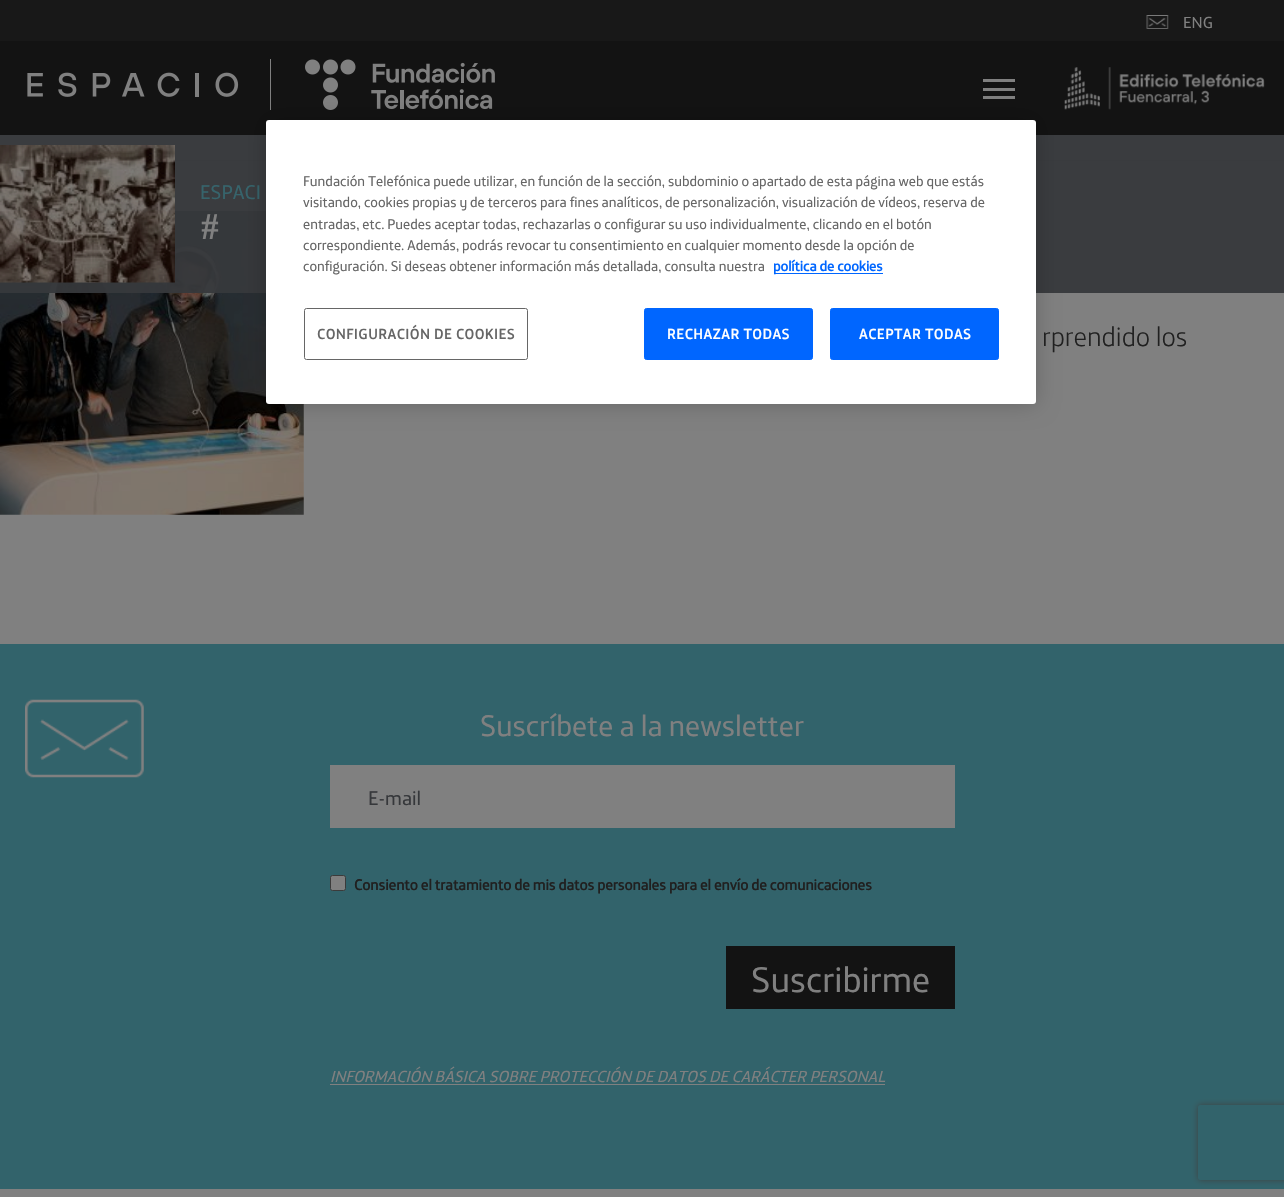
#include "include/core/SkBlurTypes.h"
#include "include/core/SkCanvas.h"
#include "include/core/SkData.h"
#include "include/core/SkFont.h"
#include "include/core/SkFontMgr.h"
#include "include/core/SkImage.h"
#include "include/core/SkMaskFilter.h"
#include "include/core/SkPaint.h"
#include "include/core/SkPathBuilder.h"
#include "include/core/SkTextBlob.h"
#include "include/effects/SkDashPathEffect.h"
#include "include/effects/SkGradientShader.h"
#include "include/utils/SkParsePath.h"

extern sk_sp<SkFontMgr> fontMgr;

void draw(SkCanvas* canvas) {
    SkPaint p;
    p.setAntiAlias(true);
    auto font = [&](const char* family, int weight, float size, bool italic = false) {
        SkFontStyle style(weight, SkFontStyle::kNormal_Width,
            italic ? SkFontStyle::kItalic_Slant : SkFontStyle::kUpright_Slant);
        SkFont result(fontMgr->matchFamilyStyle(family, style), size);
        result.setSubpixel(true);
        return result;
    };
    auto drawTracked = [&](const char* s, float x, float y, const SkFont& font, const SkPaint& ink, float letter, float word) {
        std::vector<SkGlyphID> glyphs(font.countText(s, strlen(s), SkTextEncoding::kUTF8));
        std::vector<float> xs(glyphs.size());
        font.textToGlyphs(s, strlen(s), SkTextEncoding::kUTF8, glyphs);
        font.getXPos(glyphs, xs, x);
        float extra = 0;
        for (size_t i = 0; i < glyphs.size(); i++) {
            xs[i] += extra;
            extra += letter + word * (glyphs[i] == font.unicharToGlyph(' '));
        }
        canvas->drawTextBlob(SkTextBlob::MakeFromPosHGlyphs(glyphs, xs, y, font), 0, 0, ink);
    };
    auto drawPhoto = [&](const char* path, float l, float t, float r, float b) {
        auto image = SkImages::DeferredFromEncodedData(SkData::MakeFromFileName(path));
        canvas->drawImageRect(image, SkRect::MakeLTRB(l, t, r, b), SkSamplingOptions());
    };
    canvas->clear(0xFF808080);
    p.setColor(0xFF181818);
    canvas->drawRect(SkRect::MakeLTRB(0, 0, 1284, 41), p);
    drawPhoto("media/1.png", 1146, 15, 1169, 29);
    auto font1 = font("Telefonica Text", 400, 16.25f);
    p.setColor(0xFF808080);
    canvas->drawString("ENG", 1183, 28, font1, p);
    p.setColor(0xFF131313);
    canvas->drawRect(SkRect::MakeLTRB(0, 41, 1284, 135), p);
    drawPhoto("media/2.png", 27, 59, 495, 110);
    {
        const struct { float l, t, r, b; SkColor color; } items[] = {
            {983, 88, 1015, 91, 0xFF808080},
            {983, 79, 1015, 82, 0xFF808080},
            {983, 96, 1015, 99, 0xFF808080},
        };
        for (auto [l, t, r, b, color] : items) {
            p.setColor(color);
            canvas->drawRect(SkRect::MakeLTRB(l, t, r, b), p);
        }
    }
    drawPhoto("media/3.png", 1064, 67, 1265, 110);
    p.setColor(0xFF6E6E6E);
    canvas->drawRect(SkRect::MakeLTRB(0, 160, 1284, 161), p);
    drawPhoto("media/5.png", 0, 211, 304, 515);
    p.setColor(0xF236383B);
    canvas->drawRect(SkRect::MakeLTRB(0, 135, 1284, 293), p);
    drawPhoto("media/4.png", 0, 145, 175, 283);
    auto font2 = font("Telefonica Text", 400, 20);
    p.setColor(0xFF36646C);
    canvas->drawString("ESPACI", 200, 199, font2, p);
    auto font3 = font("Telefonica Text", 400, 36);
    p.setColor(0xFF808080);
    canvas->drawString("#", 200, 239, font3, p);
    auto font4 = font("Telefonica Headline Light", 300, 27.5f);
    p.setColor(0xFF202020);
    canvas->drawString("rprendido los", 1042, 346, font4, p);
    p.setColor(0xFF32636B);
    canvas->drawRect(SkRect::MakeLTRB(0, 644, 1284, 1189), p);
    drawPhoto("media/6.png", 25, 699, 144, 778);
    auto font5 = font("Telefonica Text", 400, 30);
    p.setColor(0xFF808080);
    canvas->drawString("Suscríbete a la newsletter", 480, 736, font5, p);
    canvas->drawRect(SkRect::MakeLTRB(330, 765, 955, 828), p);
    p.setColor(0xFF36383B);
    canvas->drawString("E-mail", 368, 805, font2, p);
    p.setColor(0xFF808080);
    canvas->drawRoundRect(SkRect::MakeLTRB(330.5f, 875.5f, 345.5f, 890.5f), 2, 2, p);
    p.setStyle(SkPaint::kStroke_Style);
    p.setStrokeWidth(1);
    p.setColor(0xFF3B3B3B);
    canvas->drawRoundRect(SkRect::MakeLTRB(330.5f, 875.5f, 345.5f, 890.5f), 2, 2, p);
    auto font6 = font("Telefonica Text", 700, 15);
    p.setStyle(SkPaint::kFill_Style);
    p.setColor(0xFF202020);
    canvas->drawString("Consiento el tratamiento de mis datos personales para el envío de comunicaciones", 354, 890, font6, p);
    p.setColor(0xFF131313);
    canvas->drawRect(SkRect::MakeLTRB(726, 946, 955, 1009), p);
    p.setColor(0xFF808080);
    canvas->drawString("Suscribirme", 751, 992, font3, p);
    auto font7 = font("Telefonica Text", 400, 16.25f, true);
    canvas->drawString("INFORMACIÓN BÁSICA SOBRE PROTECCIÓN DE DATOS DE CARÁCTER PERSONAL", 330, 1082, font7, p);
    canvas->drawRect(SkRect::MakeLTRB(330, 1084, 885, 1085), p);
    p.setColor(0x33000000);
    p.setMaskFilter(SkMaskFilter::MakeBlur(kNormal_SkBlurStyle, 11));
    canvas->drawRoundRect(SkRect::MakeLTRB(266, 120, 1036, 404), 3, 3, p);
    p.setMaskFilter(nullptr);
    p.setColor(0xFFFFFFFF);
    canvas->drawRoundRect(SkRect::MakeLTRB(266, 120, 1036, 404), 3, 3, p);
    auto font8 = font("Telefonica Text", 400, 14.25f);
    p.setColor(0xFF666666);
    {
        const struct { const char* s; float x, y; } items[] = {
            {"Fundación Telefónica puede utilizar, en función de la sección, subdominio o apartado de esta página web que estás", 303, 186},
            {"visitando, cookies propias y de terceros para fines analíticos, de personalización, visualización de vídeos, reserva de", 303, 207},
            {"entradas, etc. Puedes aceptar todas, rechazarlas o configurar su uso individualmente, clicando en el botón", 303, 229},
            {"correspondiente. Además, podrás revocar tu consentimiento en cualquier momento desde la opción de", 303, 250},
            {"configuración. Si deseas obtener información más detallada, consulta nuestra", 303, 271},
        };
        for (auto [s, x, y] : items) {
            canvas->drawString(s, x, y, font8, p);
        }
    }
    p.setColor(0xFF0066FF);
    canvas->drawRect(SkRect::MakeLTRB(774, 273, 883, 274), p);
    auto font9 = font("Telefonica Text", 700, 14.25f);
    canvas->drawString("política de cookies", 773, 271, font9, p);
    p.setStyle(SkPaint::kStroke_Style);
    p.setColor(0xFF666666);
    canvas->drawRoundRect(SkRect::MakeLTRB(304.5f, 308.5f, 527.5f, 359.5f), 2, 2, p);
    p.setStyle(SkPaint::kFill_Style);
    drawTracked("CONFIGURACIÓN DE COOKIES", 317, 339, font9, p, 0.75f, 0);
    p.setColor(0xFF0066FF);
    canvas->drawRoundRect(SkRect::MakeLTRB(644.5f, 308.5f, 812.5f, 359.5f), 2, 2, p);
    p.setStyle(SkPaint::kStroke_Style);
    canvas->drawRoundRect(SkRect::MakeLTRB(644.5f, 308.5f, 812.5f, 359.5f), 2, 2, p);
    p.setStyle(SkPaint::kFill_Style);
    p.setColor(0xFFFFFFFF);
    drawTracked("RECHAZAR TODAS", 667, 339, font9, p, 0.75f, 0);
    p.setColor(0xFF0066FF);
    canvas->drawRoundRect(SkRect::MakeLTRB(830.5f, 308.5f, 998.5f, 359.5f), 2, 2, p);
    p.setStyle(SkPaint::kStroke_Style);
    canvas->drawRoundRect(SkRect::MakeLTRB(830.5f, 308.5f, 998.5f, 359.5f), 2, 2, p);
    p.setStyle(SkPaint::kFill_Style);
    p.setColor(0xFFFFFFFF);
    drawTracked("ACEPTAR TODAS", 859, 339, font9, p, 0.75f, 0);
    canvas->save();
    canvas->clipPath(SkPathBuilder(SkPathFillType::kEvenOdd).moveTo(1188, 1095).lineTo(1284, 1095).lineTo(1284, 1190).lineTo(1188, 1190).close().moveTo(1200.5f, 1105).lineTo(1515.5f, 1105).cubicTo(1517, 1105, 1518, 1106, 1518, 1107.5f).lineTo(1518, 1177.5f).cubicTo(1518, 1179, 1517, 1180, 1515.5f, 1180).lineTo(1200.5f, 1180).cubicTo(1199, 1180, 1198, 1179, 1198, 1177.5f).lineTo(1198, 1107.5f).cubicTo(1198, 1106, 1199, 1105, 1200.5f, 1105).close().detach(), true);
    p.setColor(0xFF404040);
    p.setMaskFilter(SkMaskFilter::MakeBlur(kNormal_SkBlurStyle, 3));
    canvas->drawRoundRect(SkRect::MakeLTRB(1198, 1105, 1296, 1180), 2.5f, 2.5f, p);
    p.setMaskFilter(nullptr);
    canvas->restore();
}
